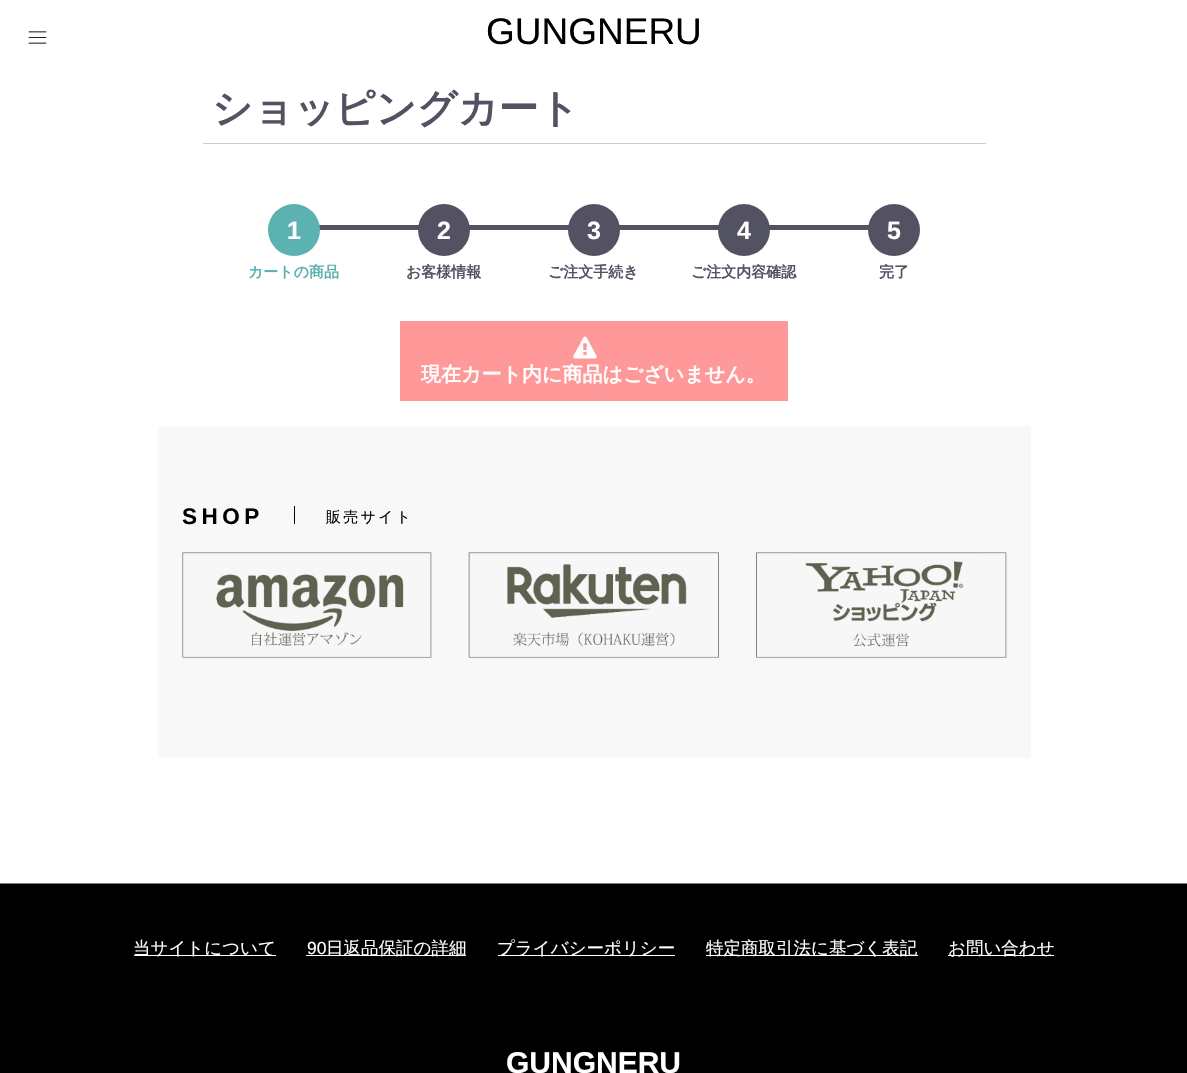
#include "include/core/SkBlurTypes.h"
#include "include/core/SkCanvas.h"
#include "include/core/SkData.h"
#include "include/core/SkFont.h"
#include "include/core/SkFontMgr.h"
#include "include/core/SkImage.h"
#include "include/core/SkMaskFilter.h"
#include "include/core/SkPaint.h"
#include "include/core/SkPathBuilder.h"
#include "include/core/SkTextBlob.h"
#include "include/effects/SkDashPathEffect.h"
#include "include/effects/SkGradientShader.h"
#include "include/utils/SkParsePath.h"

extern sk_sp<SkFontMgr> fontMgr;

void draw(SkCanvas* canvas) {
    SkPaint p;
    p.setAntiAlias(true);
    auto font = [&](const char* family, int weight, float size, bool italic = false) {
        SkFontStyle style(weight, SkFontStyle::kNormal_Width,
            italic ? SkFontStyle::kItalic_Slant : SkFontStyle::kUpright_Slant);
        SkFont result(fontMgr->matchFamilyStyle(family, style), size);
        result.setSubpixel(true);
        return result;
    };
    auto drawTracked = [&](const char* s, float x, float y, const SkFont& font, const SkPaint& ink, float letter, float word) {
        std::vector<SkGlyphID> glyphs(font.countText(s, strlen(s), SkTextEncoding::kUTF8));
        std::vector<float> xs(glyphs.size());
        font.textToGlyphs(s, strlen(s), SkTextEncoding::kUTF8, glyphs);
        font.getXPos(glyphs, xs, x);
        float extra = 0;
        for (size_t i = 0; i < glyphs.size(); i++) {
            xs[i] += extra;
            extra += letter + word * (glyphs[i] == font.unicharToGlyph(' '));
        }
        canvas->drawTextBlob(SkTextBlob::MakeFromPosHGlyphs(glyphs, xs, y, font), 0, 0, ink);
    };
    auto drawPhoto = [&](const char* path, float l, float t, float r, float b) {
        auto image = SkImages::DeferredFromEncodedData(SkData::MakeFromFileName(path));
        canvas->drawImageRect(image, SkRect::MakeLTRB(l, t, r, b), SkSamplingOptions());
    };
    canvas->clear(0xFFFFFFFF);
    drawPhoto("media/1.png", 28, 31, 47, 44);
    auto font1 = font("Liberation Sans", 400, 37);
    p.setColor(0xFF000000);
    canvas->drawString("GUNGNERU", 486, 44, font1, p);
    p.setColor(0xFFCCCCCC);
    canvas->drawRect(SkRect::MakeLTRB(203, 143, 986, 144), p);
    auto font2 = font("WenQuanYi Zen Hei", 700, 40);
    p.setColor(0xFF525263);
    canvas->drawString("ショッピングカート", 212, 122, font2, p);
    canvas->drawRect(SkRect::MakeLTRB(319, 225, 419, 230), p);
    p.setColor(0xFF5CB1B1);
    canvas->drawCircle(294, 230, 26, p);
    auto font3 = font("Liberation Sans", 700, 25);
    p.setColor(0xFFFFFFFF);
    canvas->drawString("1", 287, 239, font3, p);
    auto font4 = font("WenQuanYi Zen Hei", 700, 15);
    p.setColor(0xFF5CB1B1);
    canvas->drawString("カートの商品", 248, 277, font4, p);
    p.setColor(0xFF525263);
    canvas->drawRect(SkRect::MakeLTRB(469, 225, 569, 230), p);
    canvas->drawCircle(444, 230, 26, p);
    p.setColor(0xFFFFFFFF);
    canvas->drawString("2", 437, 239, font3, p);
    p.setColor(0xFF525263);
    canvas->drawString("お客様情報", 406, 277, font4, p);
    canvas->drawRect(SkRect::MakeLTRB(619, 225, 719, 230), p);
    canvas->drawCircle(594, 230, 26, p);
    p.setColor(0xFFFFFFFF);
    canvas->drawString("3", 587, 239, font3, p);
    p.setColor(0xFF525263);
    canvas->drawString("ご注文手続き", 548, 277, font4, p);
    canvas->drawRect(SkRect::MakeLTRB(769, 225, 869, 230), p);
    canvas->drawCircle(744, 230, 26, p);
    p.setColor(0xFFFFFFFF);
    canvas->drawString("4", 737, 239, font3, p);
    p.setColor(0xFF525263);
    canvas->drawString("ご注文内容確認", 691, 277, font4, p);
    canvas->drawCircle(894, 230, 26, p);
    p.setColor(0xFFFFFFFF);
    canvas->drawString("5", 887, 239, font3, p);
    p.setColor(0xFF525263);
    canvas->drawString("完了", 879, 277, font4, p);
    p.setColor(0xFFFF9999);
    canvas->drawRect(SkRect::MakeLTRB(400, 321, 788, 401), p);
    drawPhoto("media/2.png", 573, 336, 597, 359);
    auto font5 = font("WenQuanYi Zen Hei", 700, 20);
    p.setColor(0xFFFFFFFF);
    canvas->drawString("現在カート内に商品はございません。", 421, 381, font5, p);
    p.setColor(0xFFF8F8F8);
    canvas->drawRect(SkRect::MakeLTRB(158, 426, 1031, 758), p);
    auto font6 = font("Liberation Sans", 700, 22.5f);
    p.setColor(0xFF000000);
    drawTracked("SHOP", 182, 524, font6, p, 4.5f, 0);
    canvas->drawRect(SkRect::MakeLTRB(294, 506, 295, 524), p);
    auto font7 = font("WenQuanYi Zen Hei", 500, 15);
    drawTracked("販売サイト", 326, 522, font7, p, 2.25f, 0);
    drawPhoto("media/3.png", 182, 552, 432, 658);
    drawPhoto("media/4.png", 468, 552, 719, 658);
    drawPhoto("media/5.png", 756, 552, 1007, 658);
    {
        const struct { float l, t, r, b; SkColor color; } items[] = {
            {0, 884, 1187, 1073, 0xFF000000},
            {0, 883, 1187, 884, 0xFF7D7D7D},
            {134, 955, 276, 956, 0xFFFFFFFF},
        };
        for (auto [l, t, r, b, color] : items) {
            p.setColor(color);
            canvas->drawRect(SkRect::MakeLTRB(l, t, r, b), p);
        }
    }
    auto font8 = font("WenQuanYi Zen Hei", 500, 17.5f);
    canvas->drawString("当サイトについて", 133, 954, font8, p);
    auto font9 = font("Liberation Sans", 400, 17.5f);
    canvas->drawString("90", 307, 954, font9, p);
    canvas->drawRect(SkRect::MakeLTRB(306, 955, 466, 956), p);
    canvas->drawString("日返品保証の詳細", 326, 954, font8, p);
    canvas->drawRect(SkRect::MakeLTRB(498, 955, 675, 956), p);
    canvas->drawString("プライバシーポリシー", 497, 954, font8, p);
    canvas->drawRect(SkRect::MakeLTRB(706, 955, 918, 956), p);
    canvas->drawString("特定商取引法に基づく表記", 706, 954, font8, p);
    canvas->drawRect(SkRect::MakeLTRB(948, 955, 1054, 956), p);
    canvas->drawString("お問い合わせ", 948, 954, font8, p);
    auto font10 = font("Liberation Sans", 700, 30);
    canvas->drawString("GUNGNERU", 506, 1073, font10, p);
}
